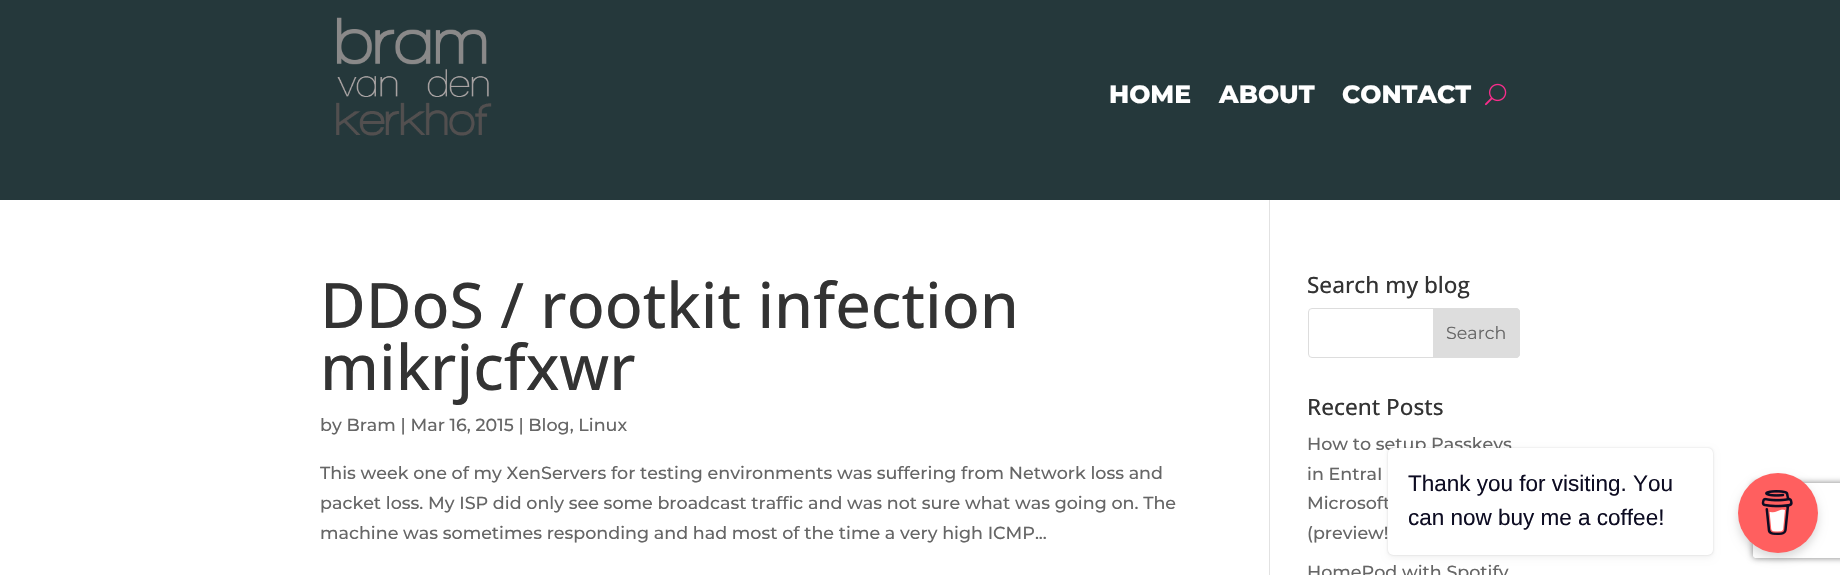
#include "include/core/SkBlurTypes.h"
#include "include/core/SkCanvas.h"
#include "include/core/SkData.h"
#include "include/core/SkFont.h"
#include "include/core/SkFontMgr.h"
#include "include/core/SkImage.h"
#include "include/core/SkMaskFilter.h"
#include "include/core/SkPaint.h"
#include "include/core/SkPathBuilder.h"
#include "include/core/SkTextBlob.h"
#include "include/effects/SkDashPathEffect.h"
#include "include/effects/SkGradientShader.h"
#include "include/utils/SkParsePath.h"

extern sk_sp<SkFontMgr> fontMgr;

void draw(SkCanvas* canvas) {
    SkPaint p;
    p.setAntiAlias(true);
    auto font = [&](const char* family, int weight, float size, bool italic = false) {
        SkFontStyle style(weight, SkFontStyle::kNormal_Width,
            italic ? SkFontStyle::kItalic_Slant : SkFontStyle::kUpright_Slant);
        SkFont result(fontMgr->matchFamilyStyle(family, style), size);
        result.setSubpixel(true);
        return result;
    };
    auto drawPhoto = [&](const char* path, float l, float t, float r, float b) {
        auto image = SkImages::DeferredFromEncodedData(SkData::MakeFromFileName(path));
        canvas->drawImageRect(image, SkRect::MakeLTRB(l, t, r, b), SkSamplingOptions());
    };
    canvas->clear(0xFFFFFFFF);
    p.setColor(0xFF25383B);
    canvas->drawRect(SkRect::MakeLTRB(0, 0, 1840, 200), p);
    drawPhoto("media/1.png", 336, 17, 492, 136);
    auto font1 = font("Montserrat", 800, 25);
    p.setColor(0xFFFFFFFF);
    {
        const struct { const char* s; float x, y; } items[] = {
            {"HOME", 1109, 103},
            {"ABOUT", 1219, 103},
            {"CONTACT", 1342, 103},
        };
        for (auto [s, x, y] : items) {
            canvas->drawString(s, x, y, font1, p);
        }
    }
    drawPhoto("media/2.png", 1485, 83, 1507, 106);
    p.setColor(0xFFE2E2E2);
    canvas->drawRect(SkRect::MakeLTRB(1269, 200, 1270, 575), p);
    auto font2 = font("Open Sans", 500, 62.75f);
    p.setColor(0xFF333333);
    canvas->drawString("DDoS / rootkit infection", 320, 328, font2, p);
    canvas->drawString("mikrjcfxwr", 320, 390, font2, p);
    auto font3 = font("Montserrat", 500, 17.5f);
    p.setColor(0xFF666666);
    {
        const struct { const char* s; float x, y; } items[] = {
            {"by Bram | Mar 16, 2015 | Blog, Linux", 320, 431},
            {"This week one of my XenServers for testing environments was suffering from Network loss and", 320, 479},
            {"packet loss. My ISP did only see some broadcast traffic and was not sure what was going on. The", 320, 509},
            {"machine was sometimes responding and had most of the time a very high ICMP...", 320, 539},
        };
        for (auto [s, x, y] : items) {
            canvas->drawString(s, x, y, font3, p);
        }
    }
    auto font4 = font("Open Sans", 500, 22.5f);
    p.setColor(0xFF333333);
    canvas->drawString("Search my blog", 1307, 293, font4, p);
    p.setStyle(SkPaint::kStroke_Style);
    p.setStrokeWidth(1);
    p.setColor(0xFFDDDDDD);
    canvas->drawRoundRect(SkRect::MakeLTRB(1308.5f, 308.5f, 1519.5f, 357.5f), 3.5f, 3.5f, p);
    p.setStyle(SkPaint::kFill_Style);
    canvas->drawPath(SkPathBuilder().moveTo(1433.5f, 308.5f).lineTo(1516, 308.5f).cubicTo(1518, 308.5f, 1519.5f, 310, 1519.5f, 312).lineTo(1519.5f, 354).cubicTo(1519.5f, 356, 1518, 357.5f, 1516, 357.5f).lineTo(1433.5f, 357.5f).close().detach(), p);
    p.setStyle(SkPaint::kStroke_Style);
    canvas->drawPath(SkPathBuilder().moveTo(1433.5f, 308.5f).lineTo(1516, 308.5f).cubicTo(1518, 308.5f, 1519.5f, 310, 1519.5f, 312).lineTo(1519.5f, 354).cubicTo(1519.5f, 356, 1518, 357.5f, 1516, 357.5f).lineTo(1433.5f, 357.5f).close().detach(), p);
    auto font5 = font("Montserrat", 400, 17.5f);
    p.setStyle(SkPaint::kFill_Style);
    p.setColor(0xFF666666);
    canvas->drawString("Search", 1446, 339, font5, p);
    p.setColor(0xFF333333);
    canvas->drawString("Recent Posts", 1307, 415, font4, p);
    p.setColor(0xFF666666);
    {
        const struct { const char* s; float x, y; } items[] = {
            {"How to setup Passkeys", 1307, 450},
            {"in EntraI", 1307, 480},
            {"Microsoft", 1307, 509},
            {"(preview!", 1307, 539},
            {"HomePod with Spotify", 1307, 578},
        };
        for (auto [s, x, y] : items) {
            canvas->drawString(s, x, y, font3, p);
        }
    }
    p.setColor(0x26000000);
    p.setMaskFilter(SkMaskFilter::MakeBlur(kNormal_SkBlurStyle, 5));
    canvas->drawRoundRect(SkRect::MakeLTRB(1738, 478, 1818, 558), 40, 40, p);
    p.setMaskFilter(nullptr);
    canvas->save();
    canvas->clipPath(SkPathBuilder(SkPathFillType::kEvenOdd).moveTo(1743, 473).lineTo(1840, 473).lineTo(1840, 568).lineTo(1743, 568).close().moveTo(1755.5f, 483).lineTo(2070.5f, 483).cubicTo(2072, 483, 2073, 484, 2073, 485.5f).lineTo(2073, 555.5f).cubicTo(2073, 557, 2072, 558, 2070.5f, 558).lineTo(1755.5f, 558).cubicTo(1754, 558, 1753, 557, 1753, 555.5f).lineTo(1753, 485.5f).cubicTo(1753, 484, 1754, 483, 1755.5f, 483).close().detach(), true);
    p.setColor(0xFF808080);
    p.setMaskFilter(SkMaskFilter::MakeBlur(kNormal_SkBlurStyle, 3));
    canvas->drawRoundRect(SkRect::MakeLTRB(1753, 483, 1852, 558), 2.5f, 2.5f, p);
    p.setMaskFilter(nullptr);
    canvas->restore();
    p.setColor(0xFFFF5F5F);
    canvas->drawCircle(1778, 513, 40, p);
    drawPhoto("media/3.png", 1761, 490, 1793, 535);
    p.setColor(0x26000000);
    p.setMaskFilter(SkMaskFilter::MakeBlur(kNormal_SkBlurStyle, 1));
    canvas->drawRoundRect(SkRect::MakeLTRB(1388, 448, 1713, 555), 5, 5, p);
    p.setMaskFilter(nullptr);
    p.setColor(0x0D000000);
    p.setMaskFilter(SkMaskFilter::MakeBlur(kNormal_SkBlurStyle, 3));
    canvas->drawRoundRect(SkRect::MakeLTRB(1388, 450, 1713, 558), 5, 5, p);
    p.setMaskFilter(nullptr);
    p.setColor(0xFFFFFFFF);
    canvas->drawRoundRect(SkRect::MakeLTRB(1388, 448, 1713, 555), 5, 5, p);
    auto font6 = font("Liberation Sans", 400, 22.5f);
    p.setColor(0xFF0D0C22);
    canvas->drawString("Thank you for visiting. You", 1408, 491, font6, p);
    canvas->drawString("can now buy me a coffee!", 1408, 525, font6, p);
}
